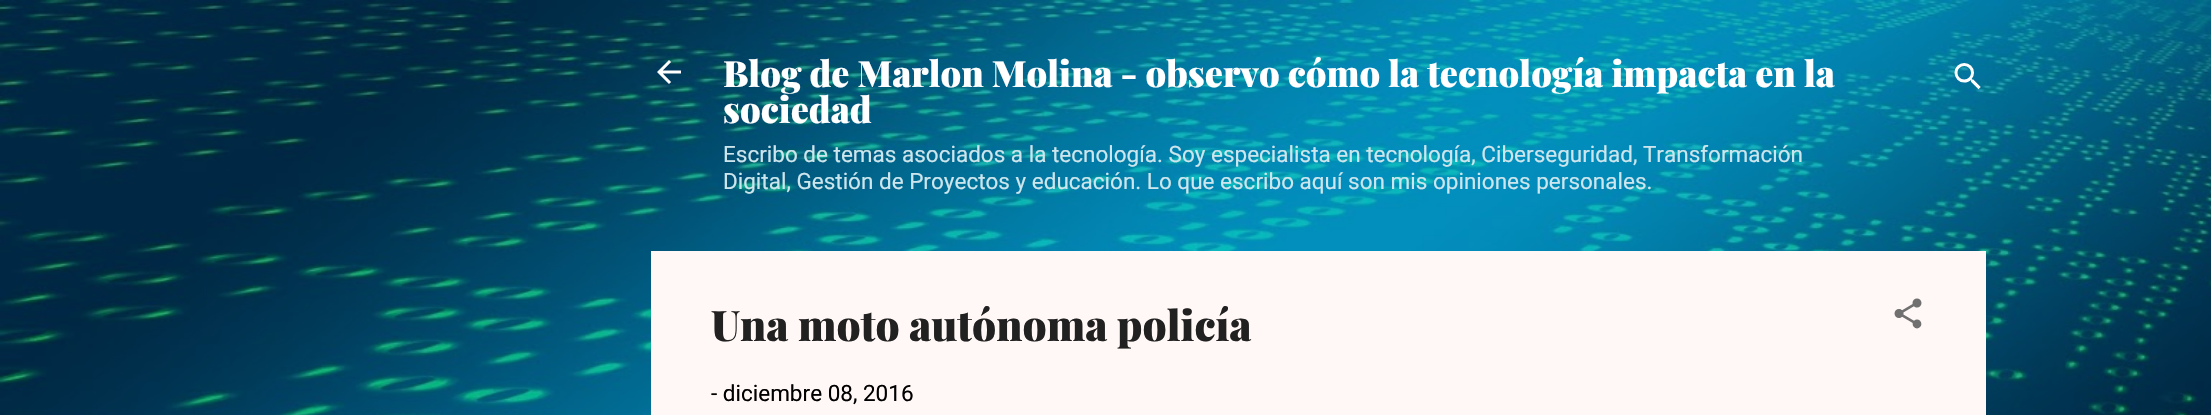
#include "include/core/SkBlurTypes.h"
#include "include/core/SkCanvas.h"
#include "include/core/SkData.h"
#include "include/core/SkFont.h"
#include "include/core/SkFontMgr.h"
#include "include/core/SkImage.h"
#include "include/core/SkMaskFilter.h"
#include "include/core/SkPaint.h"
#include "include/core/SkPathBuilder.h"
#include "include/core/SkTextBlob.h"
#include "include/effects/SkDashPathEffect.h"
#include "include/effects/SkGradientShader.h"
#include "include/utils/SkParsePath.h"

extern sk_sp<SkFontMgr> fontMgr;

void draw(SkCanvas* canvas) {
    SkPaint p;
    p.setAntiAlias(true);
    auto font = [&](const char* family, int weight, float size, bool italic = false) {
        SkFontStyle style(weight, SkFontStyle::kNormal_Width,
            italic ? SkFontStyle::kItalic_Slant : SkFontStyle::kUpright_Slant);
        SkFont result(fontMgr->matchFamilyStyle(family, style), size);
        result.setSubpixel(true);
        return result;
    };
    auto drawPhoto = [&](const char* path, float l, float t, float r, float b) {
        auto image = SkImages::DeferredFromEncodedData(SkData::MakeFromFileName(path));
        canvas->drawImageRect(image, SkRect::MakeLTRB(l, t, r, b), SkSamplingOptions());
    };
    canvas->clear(0xFFFFFFFF);
    drawPhoto("media/1.png", 0, 0, 2211, 415);
    drawPhoto("media/2.png", 657, 60, 681, 84);
    auto font1 = font("Playfair Display", 900, 36);
    p.setColor(0xFFFFFFFF);
    canvas->drawString("Blog de Marlon Molina - observo cómo la tecnología impacta en la", 723, 87, font1, p);
    canvas->drawString("sociedad", 723, 123, font1, p);
    auto font2 = font("Roboto", 400, 22.5f);
    p.setColor(0xFFCDE6ED);
    canvas->drawString("Escribo de temas asociados a la tecnología. Soy especialista en tecnología, Ciberseguridad, Transformación", 723, 162, font2, p);
    canvas->drawString("Digital, Gestión de Proyectos y educación. Lo que escribo aquí son mis opiniones personales.", 723, 189, font2, p);
    drawPhoto("media/3.png", 1954, 63, 1981, 90);
    p.setColor(0xFFFFF8F6);
    canvas->drawRect(SkRect::MakeLTRB(651, 251, 1986, 415), p);
    auto font3 = font("Playfair Display", 900, 42);
    p.setColor(0xFF212121);
    canvas->drawString("Una moto autónoma policía", 711, 341, font3, p);
    drawPhoto("media/4.png", 1894, 298, 1922, 329);
    p.setColor(0xFF000000);
    canvas->drawString("- diciembre 08, 2016", 711, 401, font2, p);
}
